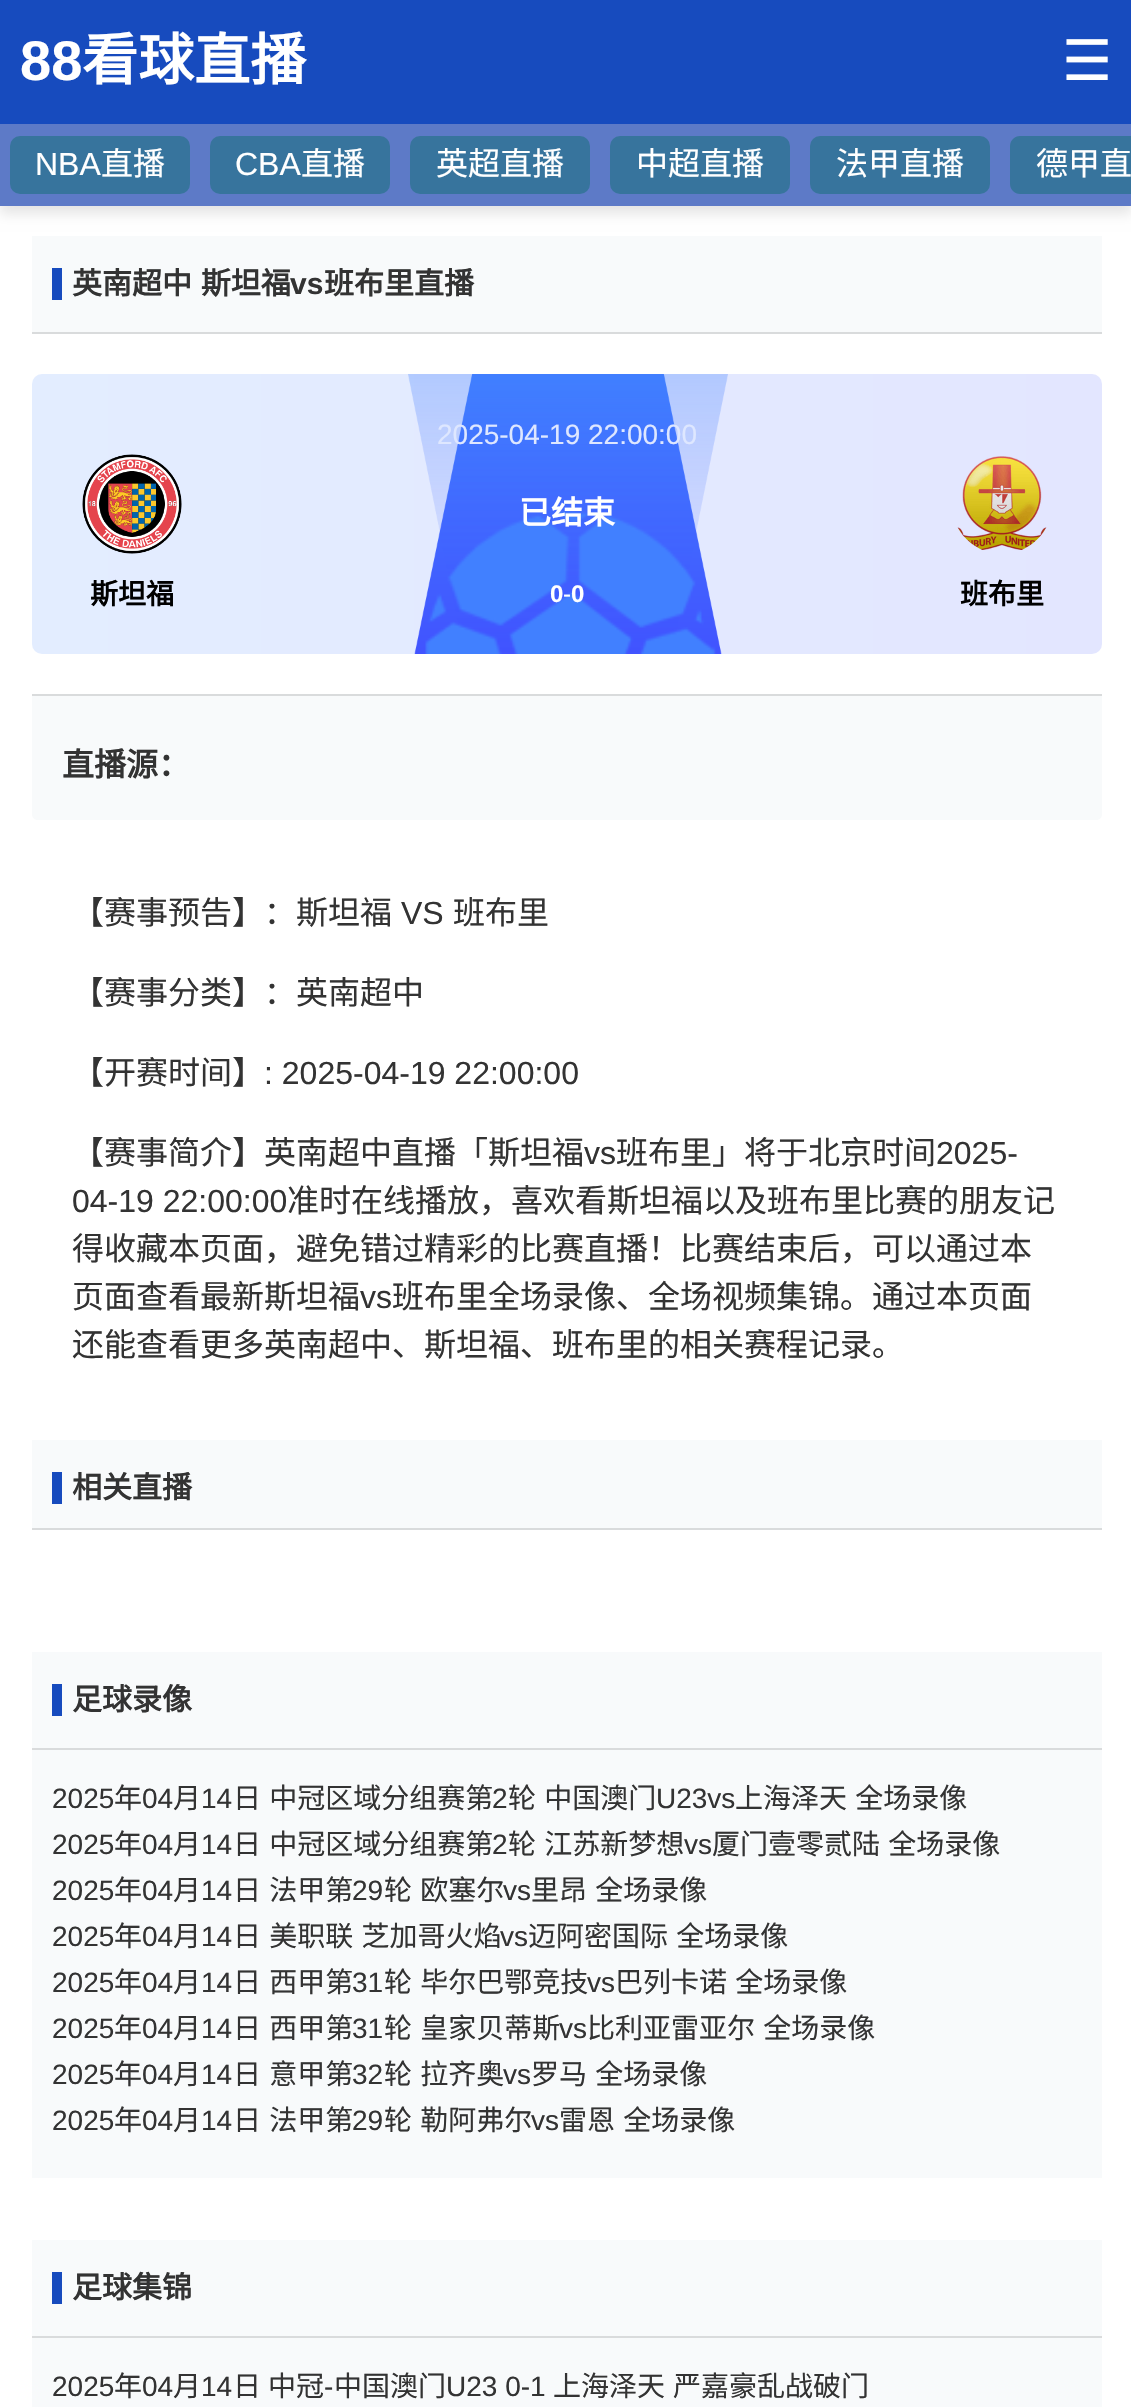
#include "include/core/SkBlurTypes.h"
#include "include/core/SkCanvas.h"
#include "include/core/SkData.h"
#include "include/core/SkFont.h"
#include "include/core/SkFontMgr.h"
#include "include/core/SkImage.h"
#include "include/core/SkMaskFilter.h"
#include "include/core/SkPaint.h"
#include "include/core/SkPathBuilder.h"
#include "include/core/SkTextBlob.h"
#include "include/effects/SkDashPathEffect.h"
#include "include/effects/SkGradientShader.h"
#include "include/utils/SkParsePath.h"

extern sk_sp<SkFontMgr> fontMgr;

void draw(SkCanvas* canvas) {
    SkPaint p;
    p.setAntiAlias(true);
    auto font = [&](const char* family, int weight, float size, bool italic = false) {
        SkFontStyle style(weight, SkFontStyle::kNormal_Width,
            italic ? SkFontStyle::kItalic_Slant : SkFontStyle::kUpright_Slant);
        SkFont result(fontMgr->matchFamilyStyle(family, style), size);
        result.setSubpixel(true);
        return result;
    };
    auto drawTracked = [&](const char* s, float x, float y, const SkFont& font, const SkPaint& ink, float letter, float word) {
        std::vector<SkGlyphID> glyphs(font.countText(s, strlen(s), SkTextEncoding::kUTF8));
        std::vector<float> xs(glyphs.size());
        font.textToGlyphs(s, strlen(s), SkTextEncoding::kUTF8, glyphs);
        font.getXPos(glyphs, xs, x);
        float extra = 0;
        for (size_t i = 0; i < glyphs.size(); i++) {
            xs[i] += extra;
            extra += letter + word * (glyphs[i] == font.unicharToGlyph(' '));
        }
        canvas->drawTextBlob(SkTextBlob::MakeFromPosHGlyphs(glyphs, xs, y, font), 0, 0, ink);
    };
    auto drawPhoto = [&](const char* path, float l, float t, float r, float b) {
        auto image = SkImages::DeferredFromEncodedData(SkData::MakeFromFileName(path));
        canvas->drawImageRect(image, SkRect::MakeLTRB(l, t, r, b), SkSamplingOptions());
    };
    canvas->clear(0xFFFFFFFF);
    p.setColor(0x1A000000);
    p.setMaskFilter(SkMaskFilter::MakeBlur(kNormal_SkBlurStyle, 6));
    canvas->drawRect(SkRect::MakeLTRB(0, 8, 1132, 214), p);
    p.setMaskFilter(nullptr);
    p.setColor(0xFF174BBE);
    canvas->drawRect(SkRect::MakeLTRB(0, 0, 1131, 124), p);
    auto font1 = font("Liberation Sans", 700, 56);
    p.setColor(0xFFFFFFFF);
    canvas->drawString("88", 20, 80, font1, p);
    auto font2 = font("Noto Sans CJK SC", 700, 56);
    canvas->drawString("看球直播", 82, 80, font2, p);
    auto font3 = font("DejaVu Sans", 400, 56);
    canvas->drawString("☰", 1062, 80, font3, p);
    p.setColor(0xFF5D7AC7);
    canvas->drawRect(SkRect::MakeLTRB(0, 124, 1131, 206), p);
    p.setColor(0xFF37749D);
    canvas->drawRoundRect(SkRect::MakeLTRB(10, 136, 190, 194), 10, 10, p);
    auto font4 = font("Liberation Sans", 400, 32);
    p.setColor(0xFFFFFFFF);
    canvas->drawString("NBA", 35, 175, font4, p);
    auto font5 = font("Noto Sans CJK SC", 400, 32);
    canvas->drawString("直播", 101, 175, font5, p);
    p.setColor(0xFF37749D);
    canvas->drawRoundRect(SkRect::MakeLTRB(210, 136, 390, 194), 10, 10, p);
    p.setColor(0xFFFFFFFF);
    canvas->drawString("CBA", 235, 175, font4, p);
    canvas->drawString("直播", 301, 175, font5, p);
    p.setColor(0xFF37749D);
    canvas->drawRoundRect(SkRect::MakeLTRB(410, 136, 590, 194), 10, 10, p);
    p.setColor(0xFFFFFFFF);
    canvas->drawString("英超直播", 436, 175, font5, p);
    p.setColor(0xFF37749D);
    canvas->drawRoundRect(SkRect::MakeLTRB(610, 136, 790, 194), 10, 10, p);
    p.setColor(0xFFFFFFFF);
    canvas->drawString("中超直播", 636, 175, font5, p);
    p.setColor(0xFF37749D);
    canvas->drawRoundRect(SkRect::MakeLTRB(810, 136, 990, 194), 10, 10, p);
    p.setColor(0xFFFFFFFF);
    canvas->drawString("法甲直播", 836, 175, font5, p);
    p.setColor(0xFF37749D);
    canvas->drawPath(SkPathBuilder().moveTo(1020, 136).lineTo(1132, 136).lineTo(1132, 194).lineTo(1020, 194).cubicTo(1014.5f, 194, 1010, 189.5f, 1010, 184).lineTo(1010, 146).cubicTo(1010, 140.5f, 1014.5f, 136, 1020, 136).close().detach(), p);
    p.setColor(0xFFFFFFFF);
    canvas->drawString("德甲直", 1036, 175, font5, p);
    {
        const struct { float l, t, r, b; SkColor color; } items[] = {
            {32, 236, 1102, 332, 0xFFF8FAFB},
            {32, 332, 1102, 334, 0xFFD9DBDC},
            {52, 268, 62, 300, 0xFF174BBE},
        };
        for (auto [l, t, r, b, color] : items) {
            p.setColor(color);
            canvas->drawRect(SkRect::MakeLTRB(l, t, r, b), p);
        }
    }
    auto font6 = font("Noto Sans CJK SC", 700, 30);
    p.setColor(0xFF333333);
    drawTracked("英南超中 斯坦福", 72, 294, font6, p, 0, 2);
    auto font7 = font("Liberation Sans", 700, 30);
    canvas->drawString("vs", 290, 294, font7, p);
    canvas->drawString("班布里直播", 324, 294, font6, p);
    {
        const SkColor colors[] = {0xFFE3E6FF, 0xFFE3EDFF};
        const float stops[] = {0, 1};
        const SkPoint ends[] = {{1102, 514}, {32, 514}};
        p.setShader(SkGradientShader::MakeLinear(ends, colors, stops, 2, SkTileMode::kClamp));
        p.setAlpha(255);
    }
    canvas->drawRoundRect(SkRect::MakeLTRB(32, 374, 1102, 654), 10, 10, p);
    drawPhoto("media/1.png", 408, 374, 728, 654);
    auto font8 = font("Liberation Sans", 400, 28);
    p.setShader(nullptr);
    p.setColor(0xFFDEE7FF);
    canvas->drawString("2025-04-19 22:00:00", 437, 444, font8, p);
    drawPhoto("media/2.png", 425, 511, 716, 654);
    auto font9 = font("Noto Sans CJK SC", 700, 32);
    p.setColor(0xFFFFFFFF);
    canvas->drawString("已结束", 519, 524, font9, p);
    auto font10 = font("Liberation Sans", 700, 24);
    canvas->drawString("0", 550, 602, font10, p);
    auto font11 = font("Liberation Sans", 400, 24);
    canvas->drawString("-", 563, 602, font11, p);
    canvas->drawString("0", 571, 602, font10, p);
    drawPhoto("media/3.png", 82, 454, 182, 554);
    auto font12 = font("Noto Sans CJK SC", 700, 28);
    p.setColor(0xFF000000);
    canvas->drawString("斯坦福", 90, 604, font12, p);
    drawPhoto("media/4.png", 957, 456, 1047, 550);
    canvas->drawString("班布里", 960, 604, font12, p);
    p.setColor(0xFFF8FAFB);
    canvas->drawPath(SkPathBuilder().moveTo(32, 694).lineTo(1102, 694).lineTo(1102, 814).cubicTo(1102, 817.5f, 1099.5f, 820, 1096, 820).lineTo(38, 820).cubicTo(34.5f, 820, 32, 817.5f, 32, 814).close().detach(), p);
    p.setColor(0xFFD9DBDC);
    canvas->drawRect(SkRect::MakeLTRB(32, 694, 1102, 696), p);
    p.setColor(0xFF333333);
    canvas->drawString("直播源：", 62, 776, font9, p);
    canvas->drawString("【赛事预告】：斯坦福", 72, 924, font5, p);
    canvas->drawString("VS", 401, 924, font4, p);
    {
        const struct { const char* s; float x, y; } items[] = {
            {"班布里", 453, 924},
            {"【赛事分类】：英南超中", 72, 1004},
            {"【开赛时间】", 72, 1084},
        };
        for (auto [s, x, y] : items) {
            canvas->drawString(s, x, y, font5, p);
        }
    }
    canvas->drawString(": 2025-04-19 22:00:00", 264, 1084, font4, p);
    canvas->drawString("【赛事简介】英南超中直播「斯坦福", 72, 1164, font5, p);
    canvas->drawString("vs", 584, 1164, font4, p);
    canvas->drawString("班布里」将于北京时间", 616, 1164, font5, p);
    canvas->drawString("2025-", 936, 1164, font4, p);
    canvas->drawString("04-19 22:00:00", 72, 1212, font4, p);
    {
        const struct { const char* s; float x, y; } items[] = {
            {"准时在线播放，喜欢看斯坦福以及班布里比赛的朋友记", 287, 1212},
            {"得收藏本页面，避免错过精彩的比赛直播！比赛结束后，可以通过本", 72, 1260},
            {"页面查看最新斯坦福", 72, 1308},
        };
        for (auto [s, x, y] : items) {
            canvas->drawString(s, x, y, font5, p);
        }
    }
    canvas->drawString("vs", 360, 1308, font4, p);
    canvas->drawString("班布里全场录像、全场视频集锦。通过本页面", 392, 1308, font5, p);
    canvas->drawString("还能查看更多英南超中、斯坦福、班布里的相关赛程记录。", 72, 1356, font5, p);
    {
        const struct { float l, t, r, b; SkColor color; } items[] = {
            {32, 1440, 1102, 1528, 0xFFF8FAFB},
            {32, 1528, 1102, 1530, 0xFFD9DBDC},
            {52, 1472, 62, 1504, 0xFF174BBE},
        };
        for (auto [l, t, r, b, color] : items) {
            p.setColor(color);
            canvas->drawRect(SkRect::MakeLTRB(l, t, r, b), p);
        }
    }
    p.setColor(0xFF333333);
    canvas->drawString("相关直播", 72, 1498, font6, p);
    {
        const struct { float l, t, r, b; SkColor color; } items[] = {
            {32, 1652, 1102, 1748, 0xFFF8FAFB},
            {32, 1748, 1102, 1750, 0xFFD9DBDC},
            {52, 1684, 62, 1716, 0xFF174BBE},
        };
        for (auto [l, t, r, b, color] : items) {
            p.setColor(color);
            canvas->drawRect(SkRect::MakeLTRB(l, t, r, b), p);
        }
    }
    p.setColor(0xFF333333);
    canvas->drawString("足球录像", 72, 1710, font6, p);
    p.setColor(0xFFF8FAFB);
    canvas->drawRect(SkRect::MakeLTRB(32, 1750, 1102, 2178), p);
    p.setColor(0xFF333333);
    canvas->drawString("2025", 52, 1808, font8, p);
    auto font13 = font("Noto Sans CJK SC", 400, 28);
    canvas->drawString("年", 114, 1808, font13, p);
    canvas->drawString("04", 142, 1808, font8, p);
    canvas->drawString("月", 173, 1808, font13, p);
    canvas->drawString("14", 201, 1808, font8, p);
    drawTracked("日 中冠区域分组赛第", 233, 1808, font13, p, 0, 2);
    canvas->drawString("2", 492, 1808, font8, p);
    drawTracked("轮 中国澳门", 508, 1808, font13, p, 0, 2);
    canvas->drawString("U23vs", 656, 1808, font8, p);
    drawTracked("上海泽天 全场录像", 735, 1808, font13, p, 0, 2);
    canvas->drawString("2025", 52, 1854, font8, p);
    canvas->drawString("年", 114, 1854, font13, p);
    canvas->drawString("04", 142, 1854, font8, p);
    canvas->drawString("月", 173, 1854, font13, p);
    canvas->drawString("14", 201, 1854, font8, p);
    drawTracked("日 中冠区域分组赛第", 233, 1854, font13, p, 0, 2);
    canvas->drawString("2", 492, 1854, font8, p);
    drawTracked("轮 江苏新梦想", 508, 1854, font13, p, 0, 2);
    canvas->drawString("vs", 684, 1854, font8, p);
    drawTracked("厦门壹零贰陆 全场录像", 712, 1854, font13, p, 0, 2);
    canvas->drawString("2025", 52, 1900, font8, p);
    canvas->drawString("年", 114, 1900, font13, p);
    canvas->drawString("04", 142, 1900, font8, p);
    canvas->drawString("月", 173, 1900, font13, p);
    canvas->drawString("14", 201, 1900, font8, p);
    drawTracked("日 法甲第", 233, 1900, font13, p, 0, 2);
    canvas->drawString("29", 352, 1900, font8, p);
    drawTracked("轮 欧塞尔", 384, 1900, font13, p, 0, 2);
    canvas->drawString("vs", 503, 1900, font8, p);
    drawTracked("里昂 全场录像", 531, 1900, font13, p, 0, 2);
    canvas->drawString("2025", 52, 1946, font8, p);
    canvas->drawString("年", 114, 1946, font13, p);
    canvas->drawString("04", 142, 1946, font8, p);
    canvas->drawString("月", 173, 1946, font13, p);
    canvas->drawString("14", 201, 1946, font8, p);
    drawTracked("日 美职联 芝加哥火焰", 233, 1946, font13, p, 0, 2);
    canvas->drawString("vs", 500, 1946, font8, p);
    drawTracked("迈阿密国际 全场录像", 528, 1946, font13, p, 0, 2);
    canvas->drawString("2025", 52, 1992, font8, p);
    canvas->drawString("年", 114, 1992, font13, p);
    canvas->drawString("04", 142, 1992, font8, p);
    canvas->drawString("月", 173, 1992, font13, p);
    canvas->drawString("14", 201, 1992, font8, p);
    drawTracked("日 西甲第", 233, 1992, font13, p, 0, 2);
    canvas->drawString("31", 352, 1992, font8, p);
    drawTracked("轮 毕尔巴鄂竞技", 384, 1992, font13, p, 0, 2);
    canvas->drawString("vs", 587, 1992, font8, p);
    drawTracked("巴列卡诺 全场录像", 615, 1992, font13, p, 0, 2);
    canvas->drawString("2025", 52, 2038, font8, p);
    canvas->drawString("年", 114, 2038, font13, p);
    canvas->drawString("04", 142, 2038, font8, p);
    canvas->drawString("月", 173, 2038, font13, p);
    canvas->drawString("14", 201, 2038, font8, p);
    drawTracked("日 西甲第", 233, 2038, font13, p, 0, 2);
    canvas->drawString("31", 352, 2038, font8, p);
    drawTracked("轮 皇家贝蒂斯", 384, 2038, font13, p, 0, 2);
    canvas->drawString("vs", 559, 2038, font8, p);
    drawTracked("比利亚雷亚尔 全场录像", 587, 2038, font13, p, 0, 2);
    canvas->drawString("2025", 52, 2084, font8, p);
    canvas->drawString("年", 114, 2084, font13, p);
    canvas->drawString("04", 142, 2084, font8, p);
    canvas->drawString("月", 173, 2084, font13, p);
    canvas->drawString("14", 201, 2084, font8, p);
    drawTracked("日 意甲第", 233, 2084, font13, p, 0, 2);
    canvas->drawString("32", 352, 2084, font8, p);
    drawTracked("轮 拉齐奥", 384, 2084, font13, p, 0, 2);
    canvas->drawString("vs", 503, 2084, font8, p);
    drawTracked("罗马 全场录像", 531, 2084, font13, p, 0, 2);
    canvas->drawString("2025", 52, 2130, font8, p);
    canvas->drawString("年", 114, 2130, font13, p);
    canvas->drawString("04", 142, 2130, font8, p);
    canvas->drawString("月", 173, 2130, font13, p);
    canvas->drawString("14", 201, 2130, font8, p);
    drawTracked("日 法甲第", 233, 2130, font13, p, 0, 2);
    canvas->drawString("29", 352, 2130, font8, p);
    drawTracked("轮 勒阿弗尔", 384, 2130, font13, p, 0, 2);
    canvas->drawString("vs", 531, 2130, font8, p);
    drawTracked("雷恩 全场录像", 559, 2130, font13, p, 0, 2);
    {
        const struct { float l, t, r, b; SkColor color; } items[] = {
            {32, 2240, 1102, 2336, 0xFFF8FAFB},
            {32, 2336, 1102, 2338, 0xFFD9DBDC},
            {52, 2272, 62, 2304, 0xFF174BBE},
        };
        for (auto [l, t, r, b, color] : items) {
            p.setColor(color);
            canvas->drawRect(SkRect::MakeLTRB(l, t, r, b), p);
        }
    }
    p.setColor(0xFF333333);
    canvas->drawString("足球集锦", 72, 2298, font6, p);
    p.setColor(0xFFF8FAFB);
    canvas->drawRect(SkRect::MakeLTRB(32, 2338, 1102, 2407), p);
    p.setColor(0xFF333333);
    canvas->drawString("2025", 52, 2396, font8, p);
    canvas->drawString("年", 114, 2396, font13, p);
    canvas->drawString("04", 142, 2396, font8, p);
    canvas->drawString("月", 173, 2396, font13, p);
    canvas->drawString("14", 201, 2396, font8, p);
    canvas->drawString("日", 233, 2396, font13, p);
    canvas->drawString("中冠", 268, 2396, font13, p);
    canvas->drawString("-", 324, 2396, font8, p);
    canvas->drawString("中国澳门", 334, 2396, font13, p);
    canvas->drawString("U23 0-1", 446, 2396, font8, p);
    canvas->drawString("上海泽天", 553, 2396, font13, p);
    canvas->drawString("严嘉豪乱战破门", 673, 2396, font13, p);
}
